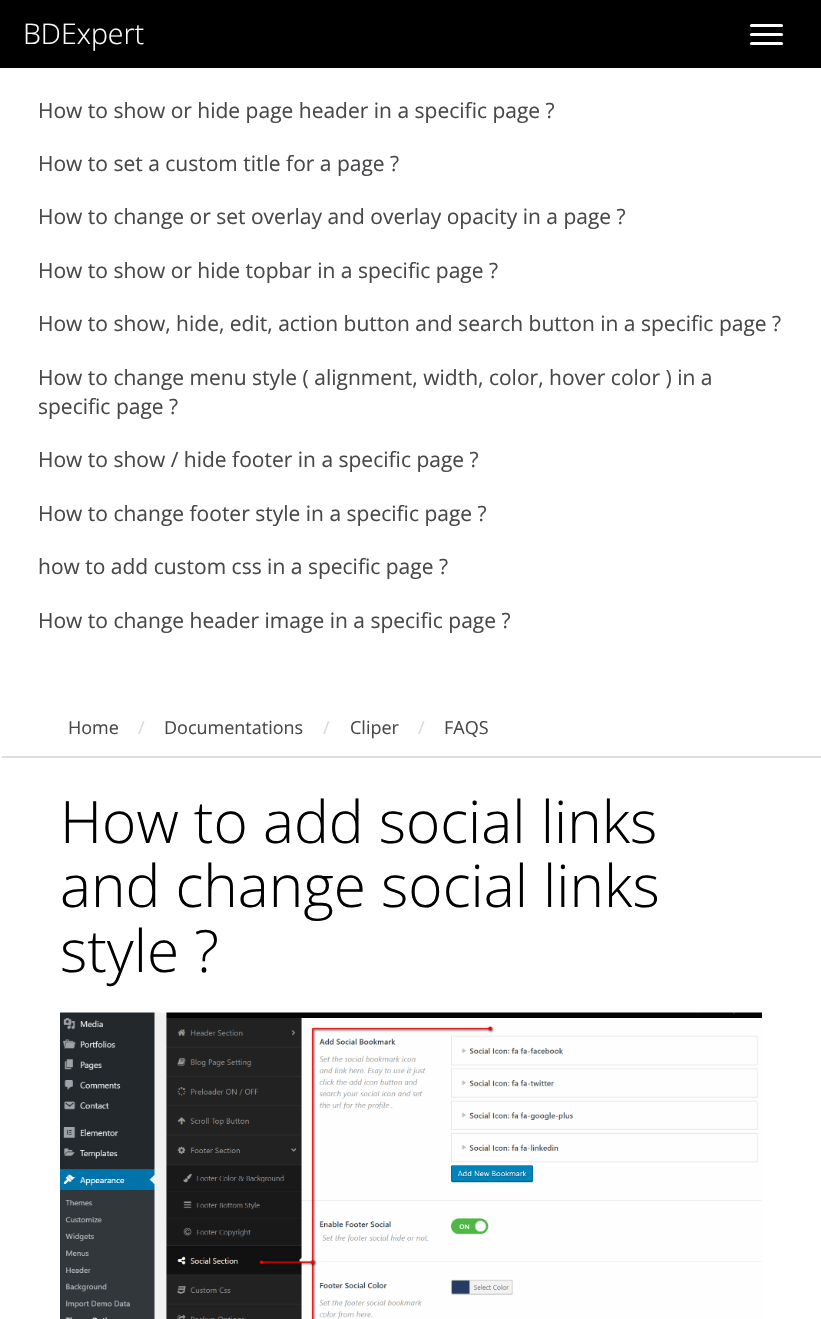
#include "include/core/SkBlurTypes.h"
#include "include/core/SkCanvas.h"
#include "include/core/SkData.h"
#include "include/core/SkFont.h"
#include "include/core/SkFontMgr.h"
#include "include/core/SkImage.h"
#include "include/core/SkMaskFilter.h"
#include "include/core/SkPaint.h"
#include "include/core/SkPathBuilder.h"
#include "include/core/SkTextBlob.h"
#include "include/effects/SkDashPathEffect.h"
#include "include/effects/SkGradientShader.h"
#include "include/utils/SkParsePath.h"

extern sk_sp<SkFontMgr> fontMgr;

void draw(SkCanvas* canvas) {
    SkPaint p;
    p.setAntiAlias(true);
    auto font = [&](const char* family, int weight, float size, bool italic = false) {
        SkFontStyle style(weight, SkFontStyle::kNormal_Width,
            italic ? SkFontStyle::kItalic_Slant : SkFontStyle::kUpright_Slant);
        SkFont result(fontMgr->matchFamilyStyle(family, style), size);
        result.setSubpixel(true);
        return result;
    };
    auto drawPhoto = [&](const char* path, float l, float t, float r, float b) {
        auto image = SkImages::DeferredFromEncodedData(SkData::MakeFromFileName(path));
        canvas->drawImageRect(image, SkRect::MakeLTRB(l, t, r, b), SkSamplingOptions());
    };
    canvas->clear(0xFFFFFFFF);
    p.setColor(0xFF000000);
    canvas->drawRect(SkRect::MakeLTRB(0, 0, 821, 68), p);
    auto font1 = font("Open Sans", 300, 28.5f);
    p.setColor(0xFFFFFFFF);
    canvas->drawString("BDExpert", 23, 44, font1, p);
    canvas->drawRoundRect(SkRect::MakeLTRB(750, 24, 783, 27), 1.5f, 1.5f, p);
    canvas->drawRoundRect(SkRect::MakeLTRB(750, 33, 783, 36), 1.5f, 1.5f, p);
    canvas->drawRoundRect(SkRect::MakeLTRB(750, 42, 783, 45), 1.5f, 1.5f, p);
    auto font2 = font("Open Sans", 400, 21);
    p.setColor(0xFF47484A);
    {
        const struct { const char* s; float x, y; } items[] = {
            {"How to show or hide page header in a specific page ?", 38, 118},
            {"How to set a custom title for a page ?", 38, 171},
            {"How to change or set overlay and overlay opacity in a page ?", 38, 224},
            {"How to show or hide topbar in a specific page ?", 38, 278},
            {"How to show, hide, edit, action button and search button in a specific page ?", 38, 331},
            {"How to change menu style ( alignment, width, color, hover color ) in a", 38, 385},
            {"specific page ?", 38, 414},
            {"How to show / hide footer in a specific page ?", 38, 467},
            {"How to change footer style in a specific page ?", 38, 521},
            {"how to add custom css in a specific page ?", 38, 574},
            {"How to change header image in a specific page ?", 38, 628},
        };
        for (auto [s, x, y] : items) {
            canvas->drawString(s, x, y, font2, p);
        }
    }
    p.setColor(0xFFDDDDDD);
    canvas->drawRect(SkRect::MakeLTRB(2, 756, 821, 758), p);
    auto font3 = font("Open Sans", 400, 18);
    p.setColor(0xFF47484A);
    canvas->drawString("Home", 68, 734, font3, p);
    p.setColor(0xFFDADADB);
    canvas->drawString("/", 138, 734, font3, p);
    p.setColor(0xFF47484A);
    canvas->drawString("Documentations", 164, 734, font3, p);
    p.setColor(0xFFDADADB);
    canvas->drawString("/", 323, 734, font3, p);
    p.setColor(0xFF47484A);
    canvas->drawString("Cliper", 350, 734, font3, p);
    p.setColor(0xFFDADADB);
    canvas->drawString("/", 418, 734, font3, p);
    p.setColor(0xFF47484A);
    canvas->drawString("FAQS", 444, 734, font3, p);
    auto font4 = font("Open Sans", 300, 58.5f);
    p.setColor(0xFF000000);
    {
        const struct { const char* s; float x, y; } items[] = {
            {"How to add social links", 60, 843},
            {"and change social links", 60, 907},
            {"style ?", 60, 972},
        };
        for (auto [s, x, y] : items) {
            canvas->drawString(s, x, y, font4, p);
        }
    }
    drawPhoto("media/1.png", 60, 1012, 762, 1319);
}
